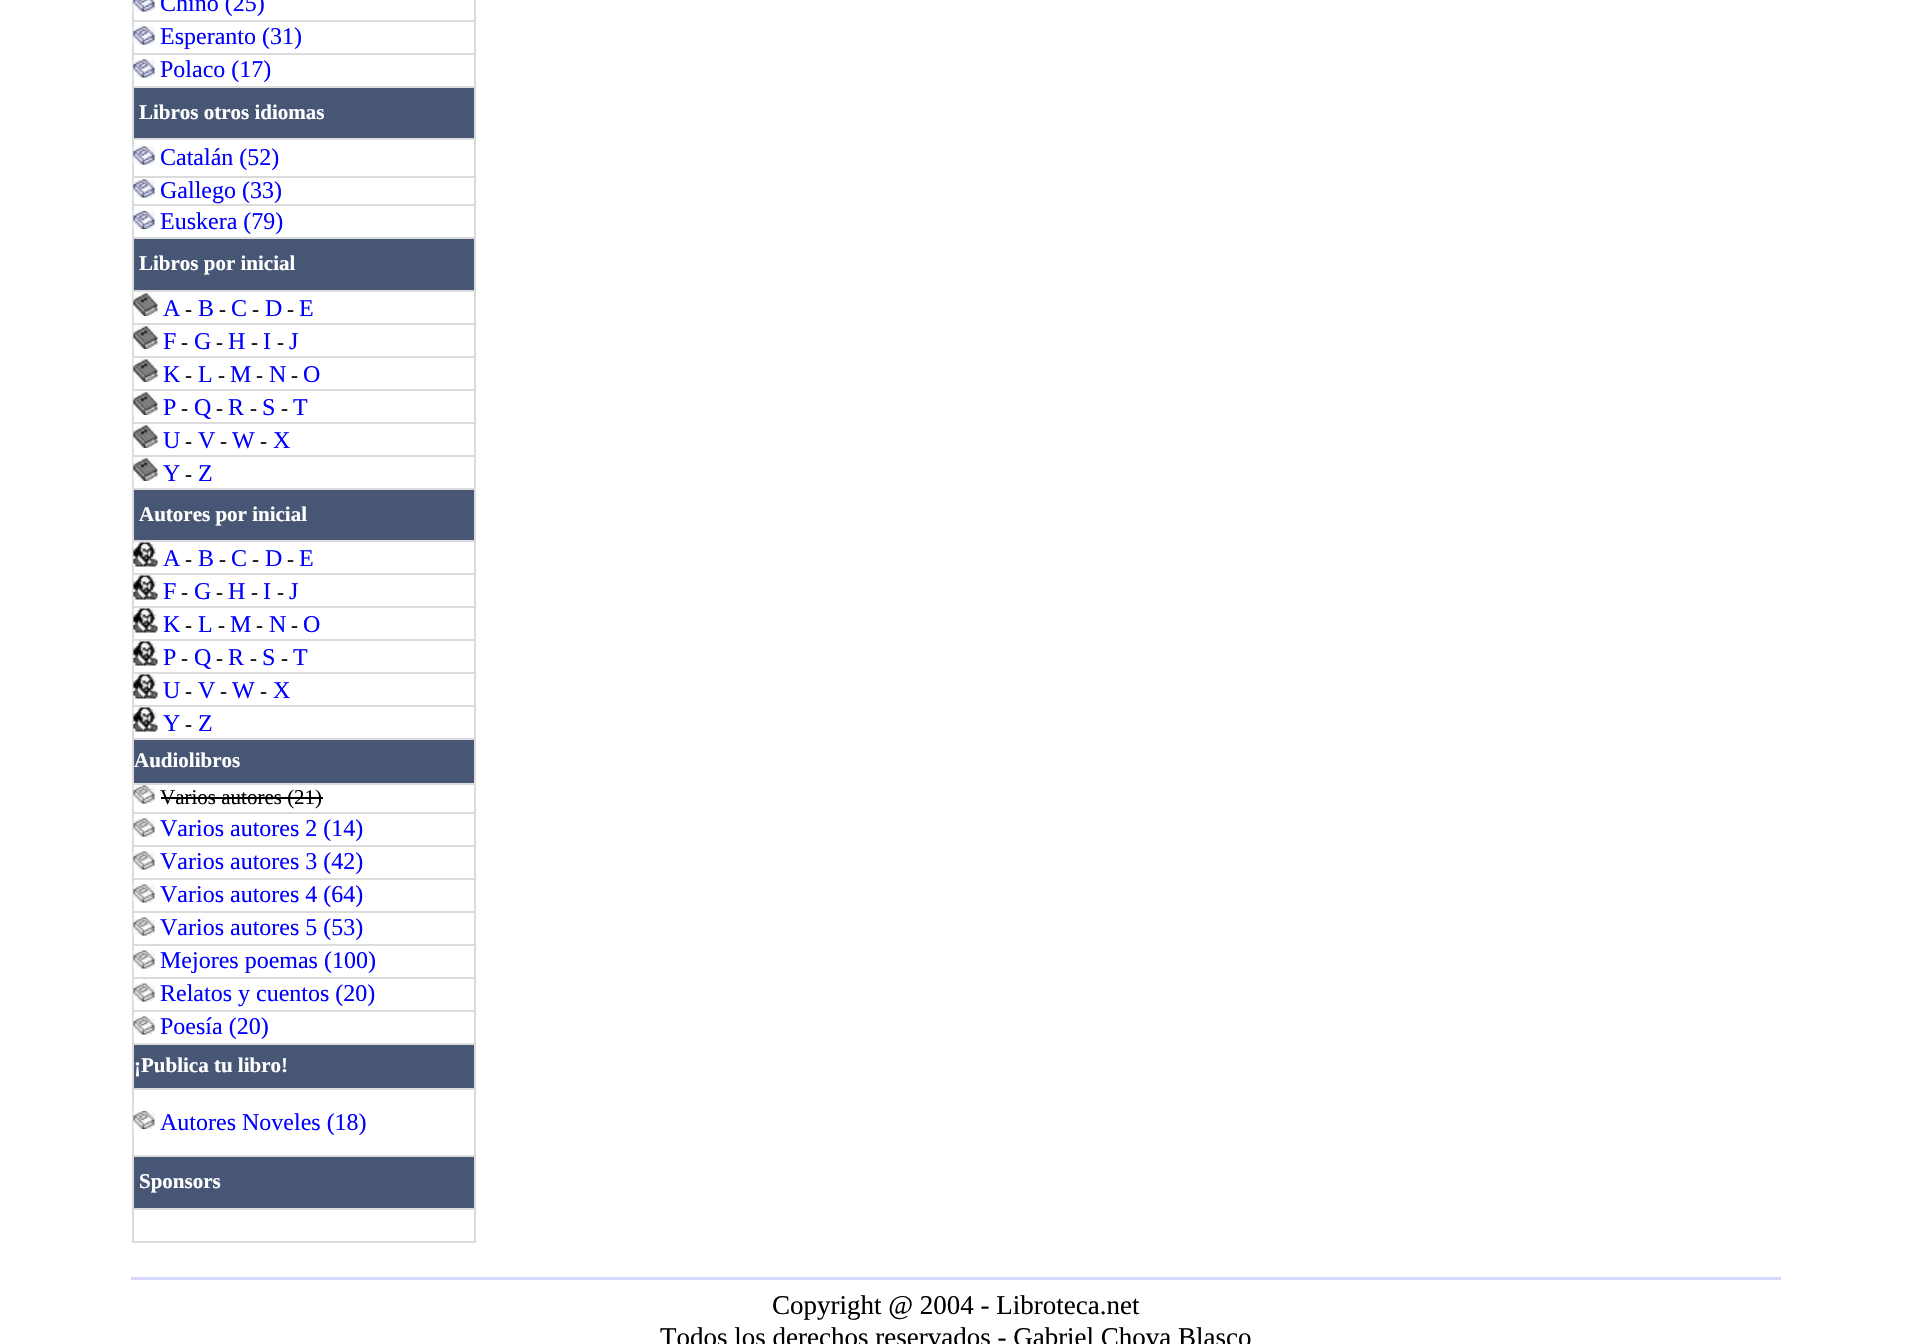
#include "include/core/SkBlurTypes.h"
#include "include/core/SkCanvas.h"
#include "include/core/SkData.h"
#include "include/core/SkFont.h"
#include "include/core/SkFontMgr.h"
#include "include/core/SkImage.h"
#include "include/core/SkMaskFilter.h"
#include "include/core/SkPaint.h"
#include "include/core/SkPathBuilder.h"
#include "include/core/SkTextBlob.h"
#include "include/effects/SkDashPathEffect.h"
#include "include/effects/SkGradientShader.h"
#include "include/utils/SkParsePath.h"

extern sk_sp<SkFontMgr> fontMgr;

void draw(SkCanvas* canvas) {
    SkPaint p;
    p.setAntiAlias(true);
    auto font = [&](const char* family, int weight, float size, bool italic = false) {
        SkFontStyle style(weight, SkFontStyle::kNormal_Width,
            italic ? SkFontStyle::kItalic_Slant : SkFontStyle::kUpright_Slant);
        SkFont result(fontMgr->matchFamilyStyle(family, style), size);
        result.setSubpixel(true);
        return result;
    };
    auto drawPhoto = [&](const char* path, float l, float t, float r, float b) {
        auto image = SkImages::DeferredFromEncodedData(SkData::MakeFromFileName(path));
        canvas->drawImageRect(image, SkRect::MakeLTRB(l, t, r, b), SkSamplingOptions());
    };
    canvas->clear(0xFFFFFFFF);
    {
        const struct { float l, t, r, b; SkColor color; } items[] = {
            {474, 0, 476, 1242, 0xFFDBDBDB},
            {132, 1241, 476, 1243, 0xFFDBDBDB},
            {132, 0, 134, 1242, 0xFFDBDBDB},
        };
        for (auto [l, t, r, b, color] : items) {
            p.setColor(color);
            canvas->drawRect(SkRect::MakeLTRB(l, t, r, b), p);
        }
    }
    drawPhoto("media/1.png", 133, 0, 155, 12);
    auto font1 = font("Liberation Serif", 400, 24);
    p.setColor(0xFF0000FF);
    canvas->drawString("Chino (25)", 160, 11, font1, p);
    p.setColor(0xFFDBDBDB);
    canvas->drawRect(SkRect::MakeLTRB(132, 20, 476, 22), p);
    drawPhoto("media/2.png", 133, 26, 155, 45);
    p.setColor(0xFF0000FF);
    canvas->drawString("Esperanto (31)", 160, 44, font1, p);
    p.setColor(0xFFDBDBDB);
    canvas->drawRect(SkRect::MakeLTRB(132, 53, 476, 55), p);
    drawPhoto("media/2.png", 133, 59, 155, 78);
    p.setColor(0xFF0000FF);
    canvas->drawString("Polaco (17)", 160, 77, font1, p);
    p.setColor(0xFF475675);
    canvas->drawRect(SkRect::MakeLTRB(134, 88, 474, 138), p);
    p.setColor(0xFFDBDBDB);
    canvas->drawRect(SkRect::MakeLTRB(132, 86, 476, 88), p);
    auto font2 = font("Liberation Serif", 700, 21);
    p.setColor(0xFFFFFFFF);
    canvas->drawString("Libros otros idiomas", 139, 119, font2, p);
    p.setColor(0xFFDBDBDB);
    canvas->drawRect(SkRect::MakeLTRB(132, 138, 476, 140), p);
    drawPhoto("media/2.png", 133, 146, 155, 165);
    p.setColor(0xFF0000FF);
    canvas->drawString("Catalán (52)", 160, 165, font1, p);
    p.setColor(0xFFDBDBDB);
    canvas->drawRect(SkRect::MakeLTRB(132, 176, 476, 178), p);
    drawPhoto("media/2.png", 133, 179, 155, 198);
    p.setColor(0xFF0000FF);
    canvas->drawString("Gallego (33)", 160, 198, font1, p);
    p.setColor(0xFFDBDBDB);
    canvas->drawRect(SkRect::MakeLTRB(132, 204, 476, 206), p);
    drawPhoto("media/3.png", 133, 211, 155, 229);
    p.setColor(0xFF0000FF);
    canvas->drawString("Euskera (79)", 160, 229, font1, p);
    p.setColor(0xFF475675);
    canvas->drawRect(SkRect::MakeLTRB(134, 239, 474, 290), p);
    p.setColor(0xFFDBDBDB);
    canvas->drawRect(SkRect::MakeLTRB(132, 237, 476, 239), p);
    p.setColor(0xFFFFFFFF);
    canvas->drawString("Libros por inicial", 139, 270, font2, p);
    p.setColor(0xFFDBDBDB);
    canvas->drawRect(SkRect::MakeLTRB(132, 290, 476, 292), p);
    drawPhoto("media/4.png", 133, 292, 158, 316);
    p.setColor(0xFF0000FF);
    canvas->drawString("A", 163, 316, font1, p);
    auto font3 = font("Liberation Serif", 400, 21);
    p.setColor(0xFF000000);
    canvas->drawString("-", 185, 316, font3, p);
    p.setColor(0xFF0000FF);
    canvas->drawString("B", 198, 316, font1, p);
    p.setColor(0xFF000000);
    canvas->drawString("-", 219, 316, font3, p);
    p.setColor(0xFF0000FF);
    canvas->drawString("C", 231, 316, font1, p);
    p.setColor(0xFF000000);
    canvas->drawString("-", 252, 316, font3, p);
    p.setColor(0xFF0000FF);
    canvas->drawString("D", 265, 316, font1, p);
    p.setColor(0xFF000000);
    canvas->drawString("-", 287, 316, font3, p);
    p.setColor(0xFF0000FF);
    canvas->drawString("E", 299, 316, font1, p);
    p.setColor(0xFFDBDBDB);
    canvas->drawRect(SkRect::MakeLTRB(132, 323, 476, 325), p);
    drawPhoto("media/4.png", 133, 325, 158, 349);
    p.setColor(0xFF0000FF);
    canvas->drawString("F", 163, 349, font1, p);
    p.setColor(0xFF000000);
    canvas->drawString("-", 181, 349, font3, p);
    p.setColor(0xFF0000FF);
    canvas->drawString("G", 194, 349, font1, p);
    p.setColor(0xFF000000);
    canvas->drawString("-", 216, 349, font3, p);
    p.setColor(0xFF0000FF);
    canvas->drawString("H", 228, 349, font1, p);
    p.setColor(0xFF000000);
    canvas->drawString("-", 251, 349, font3, p);
    p.setColor(0xFF0000FF);
    canvas->drawString("I", 263, 349, font1, p);
    p.setColor(0xFF000000);
    canvas->drawString("-", 277, 349, font3, p);
    p.setColor(0xFF0000FF);
    canvas->drawString("J", 289, 349, font1, p);
    p.setColor(0xFFDBDBDB);
    canvas->drawRect(SkRect::MakeLTRB(132, 356, 476, 358), p);
    drawPhoto("media/4.png", 133, 358, 158, 382);
    p.setColor(0xFF0000FF);
    canvas->drawString("K", 163, 382, font1, p);
    p.setColor(0xFF000000);
    canvas->drawString("-", 185, 382, font3, p);
    p.setColor(0xFF0000FF);
    canvas->drawString("L", 198, 382, font1, p);
    p.setColor(0xFF000000);
    canvas->drawString("-", 218, 382, font3, p);
    p.setColor(0xFF0000FF);
    canvas->drawString("M", 230, 382, font1, p);
    p.setColor(0xFF000000);
    canvas->drawString("-", 256, 382, font3, p);
    p.setColor(0xFF0000FF);
    canvas->drawString("N", 269, 382, font1, p);
    p.setColor(0xFF000000);
    canvas->drawString("-", 291, 382, font3, p);
    p.setColor(0xFF0000FF);
    canvas->drawString("O", 303, 382, font1, p);
    p.setColor(0xFFDBDBDB);
    canvas->drawRect(SkRect::MakeLTRB(132, 389, 476, 391), p);
    drawPhoto("media/4.png", 133, 391, 158, 415);
    p.setColor(0xFF0000FF);
    canvas->drawString("P", 163, 415, font1, p);
    p.setColor(0xFF000000);
    canvas->drawString("-", 181, 415, font3, p);
    p.setColor(0xFF0000FF);
    canvas->drawString("Q", 194, 415, font1, p);
    p.setColor(0xFF000000);
    canvas->drawString("-", 216, 415, font3, p);
    p.setColor(0xFF0000FF);
    canvas->drawString("R", 228, 415, font1, p);
    p.setColor(0xFF000000);
    canvas->drawString("-", 250, 415, font3, p);
    p.setColor(0xFF0000FF);
    canvas->drawString("S", 262, 415, font1, p);
    p.setColor(0xFF000000);
    canvas->drawString("-", 281, 415, font3, p);
    p.setColor(0xFF0000FF);
    canvas->drawString("T", 293, 415, font1, p);
    p.setColor(0xFFDBDBDB);
    canvas->drawRect(SkRect::MakeLTRB(132, 422, 476, 424), p);
    drawPhoto("media/4.png", 133, 424, 158, 448);
    p.setColor(0xFF0000FF);
    canvas->drawString("U", 163, 448, font1, p);
    p.setColor(0xFF000000);
    canvas->drawString("-", 185, 448, font3, p);
    p.setColor(0xFF0000FF);
    canvas->drawString("V", 198, 448, font1, p);
    p.setColor(0xFF000000);
    canvas->drawString("-", 220, 448, font3, p);
    p.setColor(0xFF0000FF);
    canvas->drawString("W", 232, 448, font1, p);
    p.setColor(0xFF000000);
    canvas->drawString("-", 260, 448, font3, p);
    p.setColor(0xFF0000FF);
    canvas->drawString("X", 273, 448, font1, p);
    p.setColor(0xFFDBDBDB);
    canvas->drawRect(SkRect::MakeLTRB(132, 455, 476, 457), p);
    drawPhoto("media/4.png", 133, 457, 158, 481);
    p.setColor(0xFF0000FF);
    canvas->drawString("Y", 163, 481, font1, p);
    p.setColor(0xFF000000);
    canvas->drawString("-", 185, 481, font3, p);
    p.setColor(0xFF0000FF);
    canvas->drawString("Z", 198, 481, font1, p);
    p.setColor(0xFF475675);
    canvas->drawRect(SkRect::MakeLTRB(134, 490, 474, 540), p);
    p.setColor(0xFFDBDBDB);
    canvas->drawRect(SkRect::MakeLTRB(132, 488, 476, 490), p);
    p.setColor(0xFFFFFFFF);
    canvas->drawString("Autores por inicial", 139, 521, font2, p);
    p.setColor(0xFFDBDBDB);
    canvas->drawRect(SkRect::MakeLTRB(132, 540, 476, 542), p);
    drawPhoto("media/5.png", 133, 542, 158, 567);
    p.setColor(0xFF0000FF);
    canvas->drawString("A", 163, 566, font1, p);
    p.setColor(0xFF000000);
    canvas->drawString("-", 185, 566, font3, p);
    p.setColor(0xFF0000FF);
    canvas->drawString("B", 198, 566, font1, p);
    p.setColor(0xFF000000);
    canvas->drawString("-", 219, 566, font3, p);
    p.setColor(0xFF0000FF);
    canvas->drawString("C", 231, 566, font1, p);
    p.setColor(0xFF000000);
    canvas->drawString("-", 252, 566, font3, p);
    p.setColor(0xFF0000FF);
    canvas->drawString("D", 265, 566, font1, p);
    p.setColor(0xFF000000);
    canvas->drawString("-", 287, 566, font3, p);
    p.setColor(0xFF0000FF);
    canvas->drawString("E", 299, 566, font1, p);
    p.setColor(0xFFDBDBDB);
    canvas->drawRect(SkRect::MakeLTRB(132, 573, 476, 575), p);
    drawPhoto("media/5.png", 133, 575, 158, 600);
    p.setColor(0xFF0000FF);
    canvas->drawString("F", 163, 599, font1, p);
    p.setColor(0xFF000000);
    canvas->drawString("-", 181, 599, font3, p);
    p.setColor(0xFF0000FF);
    canvas->drawString("G", 194, 599, font1, p);
    p.setColor(0xFF000000);
    canvas->drawString("-", 216, 599, font3, p);
    p.setColor(0xFF0000FF);
    canvas->drawString("H", 228, 599, font1, p);
    p.setColor(0xFF000000);
    canvas->drawString("-", 251, 599, font3, p);
    p.setColor(0xFF0000FF);
    canvas->drawString("I", 263, 599, font1, p);
    p.setColor(0xFF000000);
    canvas->drawString("-", 277, 599, font3, p);
    p.setColor(0xFF0000FF);
    canvas->drawString("J", 289, 599, font1, p);
    p.setColor(0xFFDBDBDB);
    canvas->drawRect(SkRect::MakeLTRB(132, 606, 476, 608), p);
    drawPhoto("media/5.png", 133, 608, 158, 633);
    p.setColor(0xFF0000FF);
    canvas->drawString("K", 163, 632, font1, p);
    p.setColor(0xFF000000);
    canvas->drawString("-", 185, 632, font3, p);
    p.setColor(0xFF0000FF);
    canvas->drawString("L", 198, 632, font1, p);
    p.setColor(0xFF000000);
    canvas->drawString("-", 218, 632, font3, p);
    p.setColor(0xFF0000FF);
    canvas->drawString("M", 230, 632, font1, p);
    p.setColor(0xFF000000);
    canvas->drawString("-", 256, 632, font3, p);
    p.setColor(0xFF0000FF);
    canvas->drawString("N", 269, 632, font1, p);
    p.setColor(0xFF000000);
    canvas->drawString("-", 291, 632, font3, p);
    p.setColor(0xFF0000FF);
    canvas->drawString("O", 303, 632, font1, p);
    p.setColor(0xFFDBDBDB);
    canvas->drawRect(SkRect::MakeLTRB(132, 639, 476, 641), p);
    drawPhoto("media/5.png", 133, 641, 158, 666);
    p.setColor(0xFF0000FF);
    canvas->drawString("P", 163, 665, font1, p);
    p.setColor(0xFF000000);
    canvas->drawString("-", 181, 665, font3, p);
    p.setColor(0xFF0000FF);
    canvas->drawString("Q", 194, 665, font1, p);
    p.setColor(0xFF000000);
    canvas->drawString("-", 216, 665, font3, p);
    p.setColor(0xFF0000FF);
    canvas->drawString("R", 228, 665, font1, p);
    p.setColor(0xFF000000);
    canvas->drawString("-", 250, 665, font3, p);
    p.setColor(0xFF0000FF);
    canvas->drawString("S", 262, 665, font1, p);
    p.setColor(0xFF000000);
    canvas->drawString("-", 281, 665, font3, p);
    p.setColor(0xFF0000FF);
    canvas->drawString("T", 293, 665, font1, p);
    p.setColor(0xFFDBDBDB);
    canvas->drawRect(SkRect::MakeLTRB(132, 672, 476, 674), p);
    drawPhoto("media/5.png", 133, 674, 158, 699);
    p.setColor(0xFF0000FF);
    canvas->drawString("U", 163, 698, font1, p);
    p.setColor(0xFF000000);
    canvas->drawString("-", 185, 698, font3, p);
    p.setColor(0xFF0000FF);
    canvas->drawString("V", 198, 698, font1, p);
    p.setColor(0xFF000000);
    canvas->drawString("-", 220, 698, font3, p);
    p.setColor(0xFF0000FF);
    canvas->drawString("W", 232, 698, font1, p);
    p.setColor(0xFF000000);
    canvas->drawString("-", 260, 698, font3, p);
    p.setColor(0xFF0000FF);
    canvas->drawString("X", 273, 698, font1, p);
    p.setColor(0xFFDBDBDB);
    canvas->drawRect(SkRect::MakeLTRB(132, 705, 476, 707), p);
    drawPhoto("media/5.png", 133, 707, 158, 732);
    p.setColor(0xFF0000FF);
    canvas->drawString("Y", 163, 731, font1, p);
    p.setColor(0xFF000000);
    canvas->drawString("-", 185, 731, font3, p);
    p.setColor(0xFF0000FF);
    canvas->drawString("Z", 198, 731, font1, p);
    p.setColor(0xFF475675);
    canvas->drawRect(SkRect::MakeLTRB(134, 740, 474, 783), p);
    p.setColor(0xFFDBDBDB);
    canvas->drawRect(SkRect::MakeLTRB(132, 738, 476, 740), p);
    p.setColor(0xFFFFFFFF);
    canvas->drawString("Audiolibros", 134, 767, font2, p);
    p.setColor(0xFFDBDBDB);
    canvas->drawRect(SkRect::MakeLTRB(132, 783, 476, 785), p);
    drawPhoto("media/6.png", 133, 785, 155, 804);
    p.setColor(0xFF000000);
    canvas->drawString("Varios autores (21)", 160, 804, font3, p);
    canvas->drawRect(SkRect::MakeLTRB(161, 797, 323, 799), p);
    p.setColor(0xFFDBDBDB);
    canvas->drawRect(SkRect::MakeLTRB(132, 812, 476, 814), p);
    drawPhoto("media/6.png", 133, 818, 155, 837);
    p.setColor(0xFF0000FF);
    canvas->drawString("Varios autores 2 (14)", 160, 836, font1, p);
    p.setColor(0xFFDBDBDB);
    canvas->drawRect(SkRect::MakeLTRB(132, 845, 476, 847), p);
    drawPhoto("media/6.png", 133, 851, 155, 870);
    p.setColor(0xFF0000FF);
    canvas->drawString("Varios autores 3 (42)", 160, 869, font1, p);
    p.setColor(0xFFDBDBDB);
    canvas->drawRect(SkRect::MakeLTRB(132, 878, 476, 880), p);
    drawPhoto("media/6.png", 133, 884, 155, 903);
    p.setColor(0xFF0000FF);
    canvas->drawString("Varios autores 4 (64)", 160, 902, font1, p);
    p.setColor(0xFFDBDBDB);
    canvas->drawRect(SkRect::MakeLTRB(132, 911, 476, 913), p);
    drawPhoto("media/6.png", 133, 917, 155, 936);
    p.setColor(0xFF0000FF);
    canvas->drawString("Varios autores 5 (53)", 160, 935, font1, p);
    p.setColor(0xFFDBDBDB);
    canvas->drawRect(SkRect::MakeLTRB(132, 944, 476, 946), p);
    drawPhoto("media/6.png", 133, 950, 155, 969);
    p.setColor(0xFF0000FF);
    canvas->drawString("Mejores poemas (100)", 160, 968, font1, p);
    p.setColor(0xFFDBDBDB);
    canvas->drawRect(SkRect::MakeLTRB(132, 977, 476, 979), p);
    drawPhoto("media/6.png", 133, 983, 155, 1002);
    p.setColor(0xFF0000FF);
    canvas->drawString("Relatos y cuentos (20)", 160, 1001, font1, p);
    p.setColor(0xFFDBDBDB);
    canvas->drawRect(SkRect::MakeLTRB(132, 1010, 476, 1012), p);
    drawPhoto("media/6.png", 133, 1016, 155, 1035);
    p.setColor(0xFF0000FF);
    canvas->drawString("Poesía (20)", 160, 1034, font1, p);
    p.setColor(0xFF475675);
    canvas->drawRect(SkRect::MakeLTRB(134, 1045, 474, 1088), p);
    p.setColor(0xFFDBDBDB);
    canvas->drawRect(SkRect::MakeLTRB(132, 1043, 476, 1045), p);
    p.setColor(0xFFFFFFFF);
    canvas->drawString("¡Publica tu libro!", 134, 1072, font2, p);
    p.setColor(0xFFDBDBDB);
    canvas->drawRect(SkRect::MakeLTRB(132, 1088, 476, 1090), p);
    drawPhoto("media/7.png", 133, 1111, 155, 1129);
    p.setColor(0xFF0000FF);
    canvas->drawString("Autores Noveles (18)", 160, 1130, font1, p);
    p.setColor(0xFF475675);
    canvas->drawRect(SkRect::MakeLTRB(134, 1157, 474, 1208), p);
    p.setColor(0xFFDBDBDB);
    canvas->drawRect(SkRect::MakeLTRB(132, 1155, 476, 1157), p);
    p.setColor(0xFFFFFFFF);
    canvas->drawString("Sponsors", 139, 1188, font2, p);
    p.setColor(0xFFDBDBDB);
    canvas->drawRect(SkRect::MakeLTRB(132, 1208, 476, 1210), p);
    p.setColor(0xFFD7D7FF);
    canvas->drawRect(SkRect::MakeLTRB(131, 1277, 1781, 1280), p);
    auto font4 = font("Liberation Serif", 400, 27);
    p.setColor(0xFF000000);
    canvas->drawString("Copyright @ 2004 - Libroteca.net", 772, 1314, font4, p);
    canvas->drawString("Todos los derechos reservados - Gabriel Chova Blasco", 660, 1346, font4, p);
}
